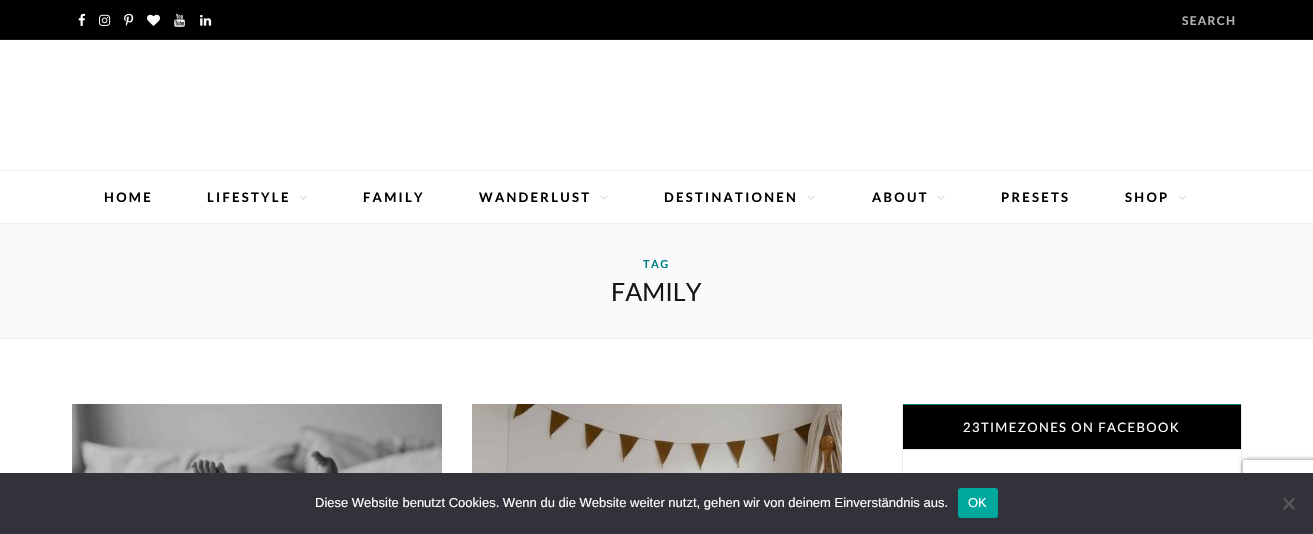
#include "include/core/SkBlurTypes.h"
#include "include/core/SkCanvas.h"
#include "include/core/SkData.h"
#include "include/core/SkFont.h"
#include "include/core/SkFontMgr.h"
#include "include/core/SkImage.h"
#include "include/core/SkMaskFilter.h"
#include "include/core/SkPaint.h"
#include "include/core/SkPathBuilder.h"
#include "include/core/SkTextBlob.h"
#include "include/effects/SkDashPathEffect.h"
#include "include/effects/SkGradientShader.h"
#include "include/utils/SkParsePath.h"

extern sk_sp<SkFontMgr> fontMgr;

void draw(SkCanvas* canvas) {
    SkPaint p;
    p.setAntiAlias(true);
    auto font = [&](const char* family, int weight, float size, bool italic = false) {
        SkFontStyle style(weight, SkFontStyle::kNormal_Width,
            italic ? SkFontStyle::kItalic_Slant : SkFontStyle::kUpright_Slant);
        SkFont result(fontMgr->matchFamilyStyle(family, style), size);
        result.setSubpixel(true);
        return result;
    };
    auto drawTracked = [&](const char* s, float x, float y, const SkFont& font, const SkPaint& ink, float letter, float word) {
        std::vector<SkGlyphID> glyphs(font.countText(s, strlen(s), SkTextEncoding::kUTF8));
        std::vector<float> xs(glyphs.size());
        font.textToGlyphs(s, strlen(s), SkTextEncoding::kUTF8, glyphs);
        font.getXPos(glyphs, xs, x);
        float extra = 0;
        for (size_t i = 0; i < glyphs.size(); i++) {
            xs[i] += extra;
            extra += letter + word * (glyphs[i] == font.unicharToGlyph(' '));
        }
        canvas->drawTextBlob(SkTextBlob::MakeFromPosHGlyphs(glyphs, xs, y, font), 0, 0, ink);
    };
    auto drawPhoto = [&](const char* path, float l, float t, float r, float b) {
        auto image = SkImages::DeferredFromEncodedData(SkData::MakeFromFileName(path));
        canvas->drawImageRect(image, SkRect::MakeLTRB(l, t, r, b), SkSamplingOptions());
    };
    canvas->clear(0xFFFFFFFF);
    p.setColor(0xFF000000);
    canvas->drawRect(SkRect::MakeLTRB(0, 0, 1313, 39), p);
    p.setColor(0xFF161616);
    canvas->drawRect(SkRect::MakeLTRB(0, 39, 1313, 40), p);
    drawPhoto("media/1.png", 78, 13, 85, 26);
    drawPhoto("media/2.png", 99, 14, 111, 26);
    drawPhoto("media/3.png", 124, 13, 134, 26);
    drawPhoto("media/4.png", 147, 14, 160, 26);
    drawPhoto("media/5.png", 174, 13, 185, 27);
    drawPhoto("media/6.png", 200, 14, 212, 26);
    auto font1 = font("Lato", 700, 12);
    p.setColor(0xFFB4B4B4);
    drawTracked("SEARCH", 1182, 25, font1, p, 1.25f, 0);
    p.setColor(0xFFEFEFEF);
    canvas->drawRect(SkRect::MakeLTRB(0, 170, 1313, 171), p);
    canvas->drawRect(SkRect::MakeLTRB(0, 223, 1313, 224), p);
    auto font2 = font("Lato", 700, 13);
    p.setColor(0xFF000000);
    drawTracked("HOME", 104, 202, font2, p, 2.3f, 0);
    drawTracked("LIFESTYLE", 207, 202, font2, p, 2.3f, 0);
    drawPhoto("media/7.png", 299, 195, 307, 200);
    drawTracked("FAMILY", 363, 202, font2, p, 2.3f, 0);
    drawTracked("WANDERLUST", 479, 202, font2, p, 2.3f, 0);
    drawPhoto("media/7.png", 600, 195, 608, 200);
    drawTracked("DESTINATIONEN", 664, 202, font2, p, 2.3f, 0);
    drawPhoto("media/7.png", 807, 195, 815, 200);
    drawTracked("ABOUT", 872, 202, font2, p, 2.3f, 0);
    drawPhoto("media/7.png", 937, 195, 945, 200);
    drawTracked("PRESETS", 1001, 202, font2, p, 2.3f, 0);
    drawTracked("SHOP", 1125, 202, font2, p, 2.3f, 0);
    drawPhoto("media/7.png", 1178, 195, 1186, 200);
    p.setColor(0xFFFAFAFA);
    canvas->drawRect(SkRect::MakeLTRB(0, 224, 1313, 338), p);
    p.setColor(0xFFEBEBEB);
    canvas->drawRect(SkRect::MakeLTRB(0, 338, 1313, 339), p);
    auto font3 = font("Lato", 700, 11);
    p.setColor(0xFF008089);
    drawTracked("TAG", 643, 268, font3, p, 1.5f, 0);
    auto font4 = font("Lato", 400, 25);
    p.setColor(0xFF161616);
    canvas->drawString("FAMILY", 611, 301, font4, p);
    drawPhoto("media/8.png", 72, 404, 442, 473);
    drawPhoto("media/9.png", 472, 404, 842, 473);
    p.setStyle(SkPaint::kStroke_Style);
    p.setStrokeWidth(1);
    p.setColor(0xFFEBEBEB);
    canvas->drawRect(SkRect::MakeLTRB(902.5f, 404.5f, 1241.5f, 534.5f), p);
    p.setStyle(SkPaint::kFill_Style);
    {
        const struct { float l, t, r, b; SkColor color; } items[] = {
            {903, 405, 1241, 449, 0xFF000000},
            {902, 404, 1242, 405, 0xFF008089},
            {1241, 404, 1242, 405, 0xFFEBEBEB},
            {902, 449, 1242, 450, 0xFFEBEBEB},
            {902, 404, 903, 405, 0xFFEBEBEB},
        };
        for (auto [l, t, r, b, color] : items) {
            p.setColor(color);
            canvas->drawRect(SkRect::MakeLTRB(l, t, r, b), p);
        }
    }
    auto font5 = font("Lato", 400, 13);
    p.setColor(0xFFFFFFFF);
    drawTracked("23TIMEZONES ON FACEBOOK", 963, 432, font5, p, 1.4f, 0);
    canvas->save();
    canvas->clipPath(SkPathBuilder(SkPathFillType::kEvenOdd).moveTo(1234, 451).lineTo(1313, 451).lineTo(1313, 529).lineTo(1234, 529).close().moveTo(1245, 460).lineTo(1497, 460).cubicTo(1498, 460, 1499, 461, 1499, 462).lineTo(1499, 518).cubicTo(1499, 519, 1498, 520, 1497, 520).lineTo(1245, 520).cubicTo(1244, 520, 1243, 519, 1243, 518).lineTo(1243, 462).cubicTo(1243, 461, 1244, 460, 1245, 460).close().detach(), true);
    p.setColor(0xFF808080);
    p.setMaskFilter(SkMaskFilter::MakeBlur(kNormal_SkBlurStyle, 2.5f));
    canvas->drawRoundRect(SkRect::MakeLTRB(1243, 460, 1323, 520), 2, 2, p);
    p.setMaskFilter(nullptr);
    canvas->restore();
    p.setColor(0xFF32323A);
    canvas->drawRect(SkRect::MakeLTRB(0, 473, 1313, 534), p);
    auto font6 = font("Liberation Sans", 400, 13);
    p.setColor(0xFFFFFFFF);
    canvas->drawString("Diese Website benutzt Cookies. Wenn du die Website weiter nutzt, gehen wir von deinem Einverständnis aus.", 315, 507, font6, p);
    p.setColor(0xFF00A99D);
    canvas->drawRoundRect(SkRect::MakeLTRB(958, 488, 998, 518), 3, 3, p);
    p.setColor(0xFFFFFFFF);
    canvas->drawString("OK", 968, 507, font6, p);
    p.setColor(0xFF59595D);
    canvas->drawPath(SkPathBuilder().moveTo(1293.5f, 497.5f).lineTo(1295, 499).lineTo(1284.5f, 510).lineTo(1283, 508.5f).close().detach(), p);
    canvas->drawPath(SkPathBuilder().moveTo(1283, 499).lineTo(1284.5f, 497.5f).lineTo(1295, 508.5f).lineTo(1293.5f, 510).close().detach(), p);
}
